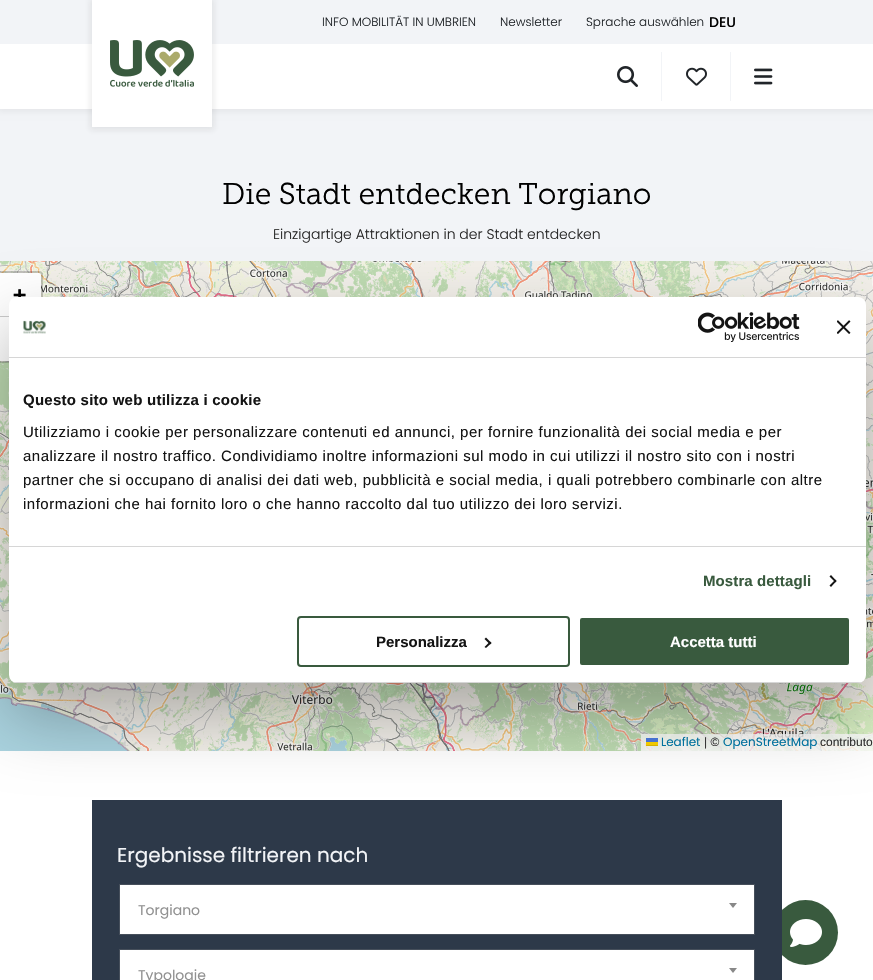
#include "include/core/SkBlurTypes.h"
#include "include/core/SkCanvas.h"
#include "include/core/SkData.h"
#include "include/core/SkFont.h"
#include "include/core/SkFontMgr.h"
#include "include/core/SkImage.h"
#include "include/core/SkMaskFilter.h"
#include "include/core/SkPaint.h"
#include "include/core/SkPathBuilder.h"
#include "include/core/SkTextBlob.h"
#include "include/effects/SkDashPathEffect.h"
#include "include/effects/SkGradientShader.h"
#include "include/utils/SkParsePath.h"

extern sk_sp<SkFontMgr> fontMgr;

void draw(SkCanvas* canvas) {
    SkPaint p;
    p.setAntiAlias(true);
    auto font = [&](const char* family, int weight, float size, bool italic = false) {
        SkFontStyle style(weight, SkFontStyle::kNormal_Width,
            italic ? SkFontStyle::kItalic_Slant : SkFontStyle::kUpright_Slant);
        SkFont result(fontMgr->matchFamilyStyle(family, style), size);
        result.setSubpixel(true);
        return result;
    };
    auto drawTracked = [&](const char* s, float x, float y, const SkFont& font, const SkPaint& ink, float letter, float word) {
        std::vector<SkGlyphID> glyphs(font.countText(s, strlen(s), SkTextEncoding::kUTF8));
        std::vector<float> xs(glyphs.size());
        font.textToGlyphs(s, strlen(s), SkTextEncoding::kUTF8, glyphs);
        font.getXPos(glyphs, xs, x);
        float extra = 0;
        for (size_t i = 0; i < glyphs.size(); i++) {
            xs[i] += extra;
            extra += letter + word * (glyphs[i] == font.unicharToGlyph(' '));
        }
        canvas->drawTextBlob(SkTextBlob::MakeFromPosHGlyphs(glyphs, xs, y, font), 0, 0, ink);
    };
    auto drawPhoto = [&](const char* path, float l, float t, float r, float b) {
        auto image = SkImages::DeferredFromEncodedData(SkData::MakeFromFileName(path));
        canvas->drawImageRect(image, SkRect::MakeLTRB(l, t, r, b), SkSamplingOptions());
    };
    canvas->clear(0xFFFFFFFF);
    p.setColor(0xFFF2F4F7);
    canvas->drawRect(SkRect::MakeLTRB(0, 109, 873, 261), p);
    p.setColor(0x0D000000);
    p.setMaskFilter(SkMaskFilter::MakeBlur(kNormal_SkBlurStyle, 3));
    canvas->drawRect(SkRect::MakeLTRB(-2, 43, 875, 112), p);
    p.setMaskFilter(nullptr);
    p.setColor(0xFFF2F4F7);
    canvas->drawRect(SkRect::MakeLTRB(0, 0, 873, 44), p);
    p.setColor(0xFFFFFFFF);
    canvas->drawRect(SkRect::MakeLTRB(0, 44, 873, 109), p);
    p.setColor(0x17202020);
    p.setMaskFilter(SkMaskFilter::MakeBlur(kNormal_SkBlurStyle, 3));
    canvas->drawRect(SkRect::MakeLTRB(90, -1, 214, 130), p);
    p.setMaskFilter(nullptr);
    p.setColor(0xFFFFFFFF);
    canvas->drawRect(SkRect::MakeLTRB(92, 0, 212, 127), p);
    drawPhoto("media/1.png", 110, 40, 194, 87);
    auto font1 = font("Poppins", 300, 12);
    p.setColor(0xFF212529);
    {
        const struct { const char* s; float x, y; } items[] = {
            {"INFO MOBILITÄT IN UMBRIEN", 322, 26},
            {"Newsletter", 500, 26},
            {"Sprache auswählen", 586, 26},
        };
        for (auto [s, x, y] : items) {
            canvas->drawString(s, x, y, font1, p);
        }
    }
    auto font2 = font("Poppins", 500, 14);
    p.setColor(0xFF000000);
    canvas->drawString("DEU", 709, 27, font2, p);
    drawPhoto("media/2.png", 617, 66, 638, 87);
    p.setColor(0xFFF2F4F7);
    canvas->drawRect(SkRect::MakeLTRB(661, 52, 662, 101), p);
    drawPhoto("media/3.png", 686, 67, 707, 86);
    canvas->drawRect(SkRect::MakeLTRB(730, 52, 731, 101), p);
    drawPhoto("media/4.png", 754, 68, 773, 85);
    auto font3 = font("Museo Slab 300", 300, 30);
    p.setColor(0xFF000000);
    canvas->drawString("Die Stadt entdecken Torgiano", 222, 204, font3, p);
    auto font4 = font("Poppins", 300, 14);
    p.setColor(0xFF272727);
    canvas->drawString("Einzigartige Attraktionen in der Stadt entdecken", 273, 239, font4, p);
    drawPhoto("media/5.png", 0, 261, 1, 376);
    drawPhoto("media/6.png", 1, 261, 257, 376);
    drawPhoto("media/7.png", 257, 261, 513, 297);
    drawPhoto("media/8.png", 513, 261, 769, 297);
    drawPhoto("media/9.png", 769, 261, 873, 376);
    drawPhoto("media/10.png", 0, 376, 1, 632);
    drawPhoto("media/11.png", 1, 376, 9, 632);
    drawPhoto("media/12.png", 866, 376, 873, 632);
    drawPhoto("media/13.png", 0, 632, 1, 751);
    drawPhoto("media/14.png", 1, 632, 257, 751);
    drawPhoto("media/15.png", 257, 683, 513, 751);
    drawPhoto("media/16.png", 513, 683, 769, 751);
    drawPhoto("media/17.png", 769, 632, 873, 751);
    p.setStyle(SkPaint::kStroke_Style);
    p.setStrokeWidth(2);
    p.setColor(0x33000000);
    canvas->drawRoundRect(SkRect::MakeLTRB(-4, 272, 42, 362), 3, 3, p);
    p.setStyle(SkPaint::kFill_Style);
    p.setColor(0xFFFFFFFF);
    canvas->drawPath(SkPathBuilder().moveTo(0, 273).lineTo(39, 273).cubicTo(40, 273, 41, 274, 41, 275).lineTo(41, 317).lineTo(-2, 317).lineTo(-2, 275).cubicTo(-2, 274, -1, 273, 0, 273).close().detach(), p);
    p.setColor(0xFFCCCCCC);
    canvas->drawRect(SkRect::MakeLTRB(0, 316, 9, 317), p);
    auto font5 = font("DejaVu Sans Mono", 700, 22);
    p.setColor(0xFF000000);
    canvas->drawString("+", 13, 302, font5, p);
    p.setColor(0xFFFFFFFF);
    canvas->drawRect(SkRect::MakeLTRB(0, 317, 9, 361), p);
    p.setColor(0xCCFFFFFF);
    canvas->drawRect(SkRect::MakeLTRB(641, 734, 873, 751), p);
    auto font6 = font("Poppins", 400, 12);
    p.setColor(0xFF0078A8);
    canvas->drawString("Leaflet", 661, 746, font6, p);
    {
        const struct { float l, t, r, b; SkColor color; } items[] = {
            {646, 738, 658, 742, 0xFF4C7BE1},
            {646, 742, 658, 745, 0xFFFFD500},
            {646, 745, 658, 746, 0xFFE0BC00},
        };
        for (auto [l, t, r, b, color] : items) {
            p.setColor(color);
            canvas->drawRect(SkRect::MakeLTRB(l, t, r, b), p);
        }
    }
    auto font7 = font("Liberation Sans", 400, 12);
    p.setColor(0xFF333333);
    canvas->drawString("| ©", 704, 746, font7, p);
    p.setColor(0xFF0078A8);
    canvas->drawString("OpenStreetMap", 723, 746, font6, p);
    p.setColor(0xFF333333);
    canvas->drawString("contributo", 820, 746, font7, p);
    p.setColor(0xFF395A3E);
    canvas->drawCircle(805.5f, 932.5f, 32.5f, p);
    p.setColor(0xFF2D3949);
    canvas->drawRect(SkRect::MakeLTRB(92, 800, 782, 980), p);
    auto font8 = font("Poppins", 400, 20);
    p.setColor(0xFFF2F4F7);
    canvas->drawString("Ergebnisse filtrieren nach", 117, 862, font8, p);
    p.setStyle(SkPaint::kStroke_Style);
    p.setStrokeWidth(1);
    p.setColor(0xFF464F5B);
    canvas->drawRect(SkRect::MakeLTRB(119.5f, 884.5f, 754.5f, 934.5f), p);
    p.setStyle(SkPaint::kFill_Style);
    p.setColor(0xFFFFFFFF);
    canvas->drawRect(SkRect::MakeLTRB(120, 885, 754, 934), p);
    auto font9 = font("Poppins", 400, 14);
    p.setColor(0xFF919191);
    canvas->drawString("Torgiano", 138, 915, font9, p);
    p.setColor(0xFF888888);
    canvas->drawPath(SkPathBuilder().moveTo(729, 903).lineTo(737, 903).lineTo(733, 908).close().detach(), p);
    p.setStyle(SkPaint::kStroke_Style);
    p.setColor(0xFF464F5B);
    canvas->drawRect(SkRect::MakeLTRB(119.5f, 949.5f, 754.5f, 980.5f), p);
    p.setStyle(SkPaint::kFill_Style);
    p.setColor(0xFFFFFFFF);
    canvas->drawRect(SkRect::MakeLTRB(120, 950, 754, 980), p);
    p.setColor(0xFF919191);
    canvas->drawString("Typologie", 138, 980, font9, p);
    p.setColor(0xFF888888);
    canvas->drawPath(SkPathBuilder().moveTo(729, 968).lineTo(737, 968).lineTo(733, 973).close().detach(), p);
    p.setColor(0x4D000000);
    p.setMaskFilter(SkMaskFilter::MakeBlur(kNormal_SkBlurStyle, 34));
    canvas->drawRoundRect(SkRect::MakeLTRB(9, 329, 866, 715), 8, 8, p);
    p.setMaskFilter(nullptr);
    p.setColor(0xFFFFFFFF);
    canvas->drawRoundRect(SkRect::MakeLTRB(9, 297, 866, 683), 8, 8, p);
    p.setColor(0xFFD6D6D6);
    canvas->drawRect(SkRect::MakeLTRB(9, 357, 866, 358), p);
    drawPhoto("media/18.png", 23, 320, 46, 334);
    drawPhoto("media/19.png", 698, 312, 800, 342);
    drawPhoto("media/20.png", 837, 320, 851, 334);
    canvas->drawRect(SkRect::MakeLTRB(9, 546, 866, 547), p);
    auto font10 = font("Liberation Sans", 700, 15);
    p.setColor(0xFF141414);
    drawTracked("Questo sito web utilizza i cookie", 23, 405, font10, p, 0.25f, 0);
    auto font11 = font("Liberation Sans", 400, 15);
    {
        const struct { const char* s; float x, y; } items[] = {
            {"Utilizziamo i cookie per personalizzare contenuti ed annunci, per fornire funzionalità dei social media e per", 23, 437},
            {"analizzare il nostro traffico. Condividiamo inoltre informazioni sul modo in cui utilizzi il nostro sito con i nostri", 23, 461},
            {"partner che si occupano di analisi dei dati web, pubblicità e social media, i quali potrebbero combinarle con altre", 23, 485},
            {"informazioni che hai fornito loro o che hanno raccolto dal tuo utilizzo dei loro servizi.", 23, 509},
        };
        for (auto [s, x, y] : items) {
            drawTracked(s, x, y, font11, p, 0.5f, 0);
        }
    }
    p.setColor(0xFF395A3E);
    drawTracked("Mostra dettagli", 703, 586, font10, p, 0.1f, 0);
    p.setColor(0xFF141414);
    canvas->drawPath(SkPathBuilder().moveTo(831, 575).lineTo(836.5f, 581).lineTo(835.5f, 582.5f).lineTo(829.5f, 576.5f).close().detach(), p);
    canvas->drawPath(SkPathBuilder().moveTo(835.5f, 579.5f).lineTo(836.5f, 581).lineTo(831, 587).lineTo(829.5f, 585.5f).close().detach(), p);
    canvas->save();
    canvas->clipPath(SkPathBuilder().moveTo(17, 297).lineTo(858, 297).cubicTo(862.5f, 297, 866, 300.5f, 866, 305).lineTo(866, 675).cubicTo(866, 679.5f, 862.5f, 683, 858, 683).lineTo(17, 683).cubicTo(12.5f, 683, 9, 679.5f, 9, 675).lineTo(9, 305).cubicTo(9, 300.5f, 12.5f, 297, 17, 297).close().detach(), true);
    p.setColor(0xFFD6D6D6);
    canvas->drawRect(SkRect::MakeLTRB(9, 682, 866, 683), p);
    canvas->restore();
    p.setStyle(SkPaint::kStroke_Style);
    p.setStrokeWidth(2);
    p.setColor(0xFF395A3E);
    canvas->drawRoundRect(SkRect::MakeLTRB(298, 617, 569, 666), 3, 3, p);
    p.setStyle(SkPaint::kFill_Style);
    p.setColor(0xFF141414);
    canvas->drawString("Personalizza", 376, 647, font10, p);
    canvas->drawPath(SkPathBuilder().moveTo(486, 637.5f).lineTo(491.5f, 643).lineTo(490, 644.5f).lineTo(484.5f, 639).close().detach(), p);
    canvas->drawPath(SkPathBuilder().moveTo(490, 641.5f).lineTo(491.5f, 643).lineTo(486, 648).lineTo(484.5f, 647).close().detach(), p);
    p.setColor(0xFF395A3E);
    canvas->drawRoundRect(SkRect::MakeLTRB(579, 617, 850, 666), 3, 3, p);
    p.setStyle(SkPaint::kStroke_Style);
    p.setColor(0xFFFFFFFF);
    canvas->drawRoundRect(SkRect::MakeLTRB(579, 617, 850, 666), 3, 3, p);
    p.setStyle(SkPaint::kFill_Style);
    canvas->drawString("Accetta tutti", 670, 647, font10, p);
    drawPhoto("media/21.png", 790, 919, 822, 947);
}
